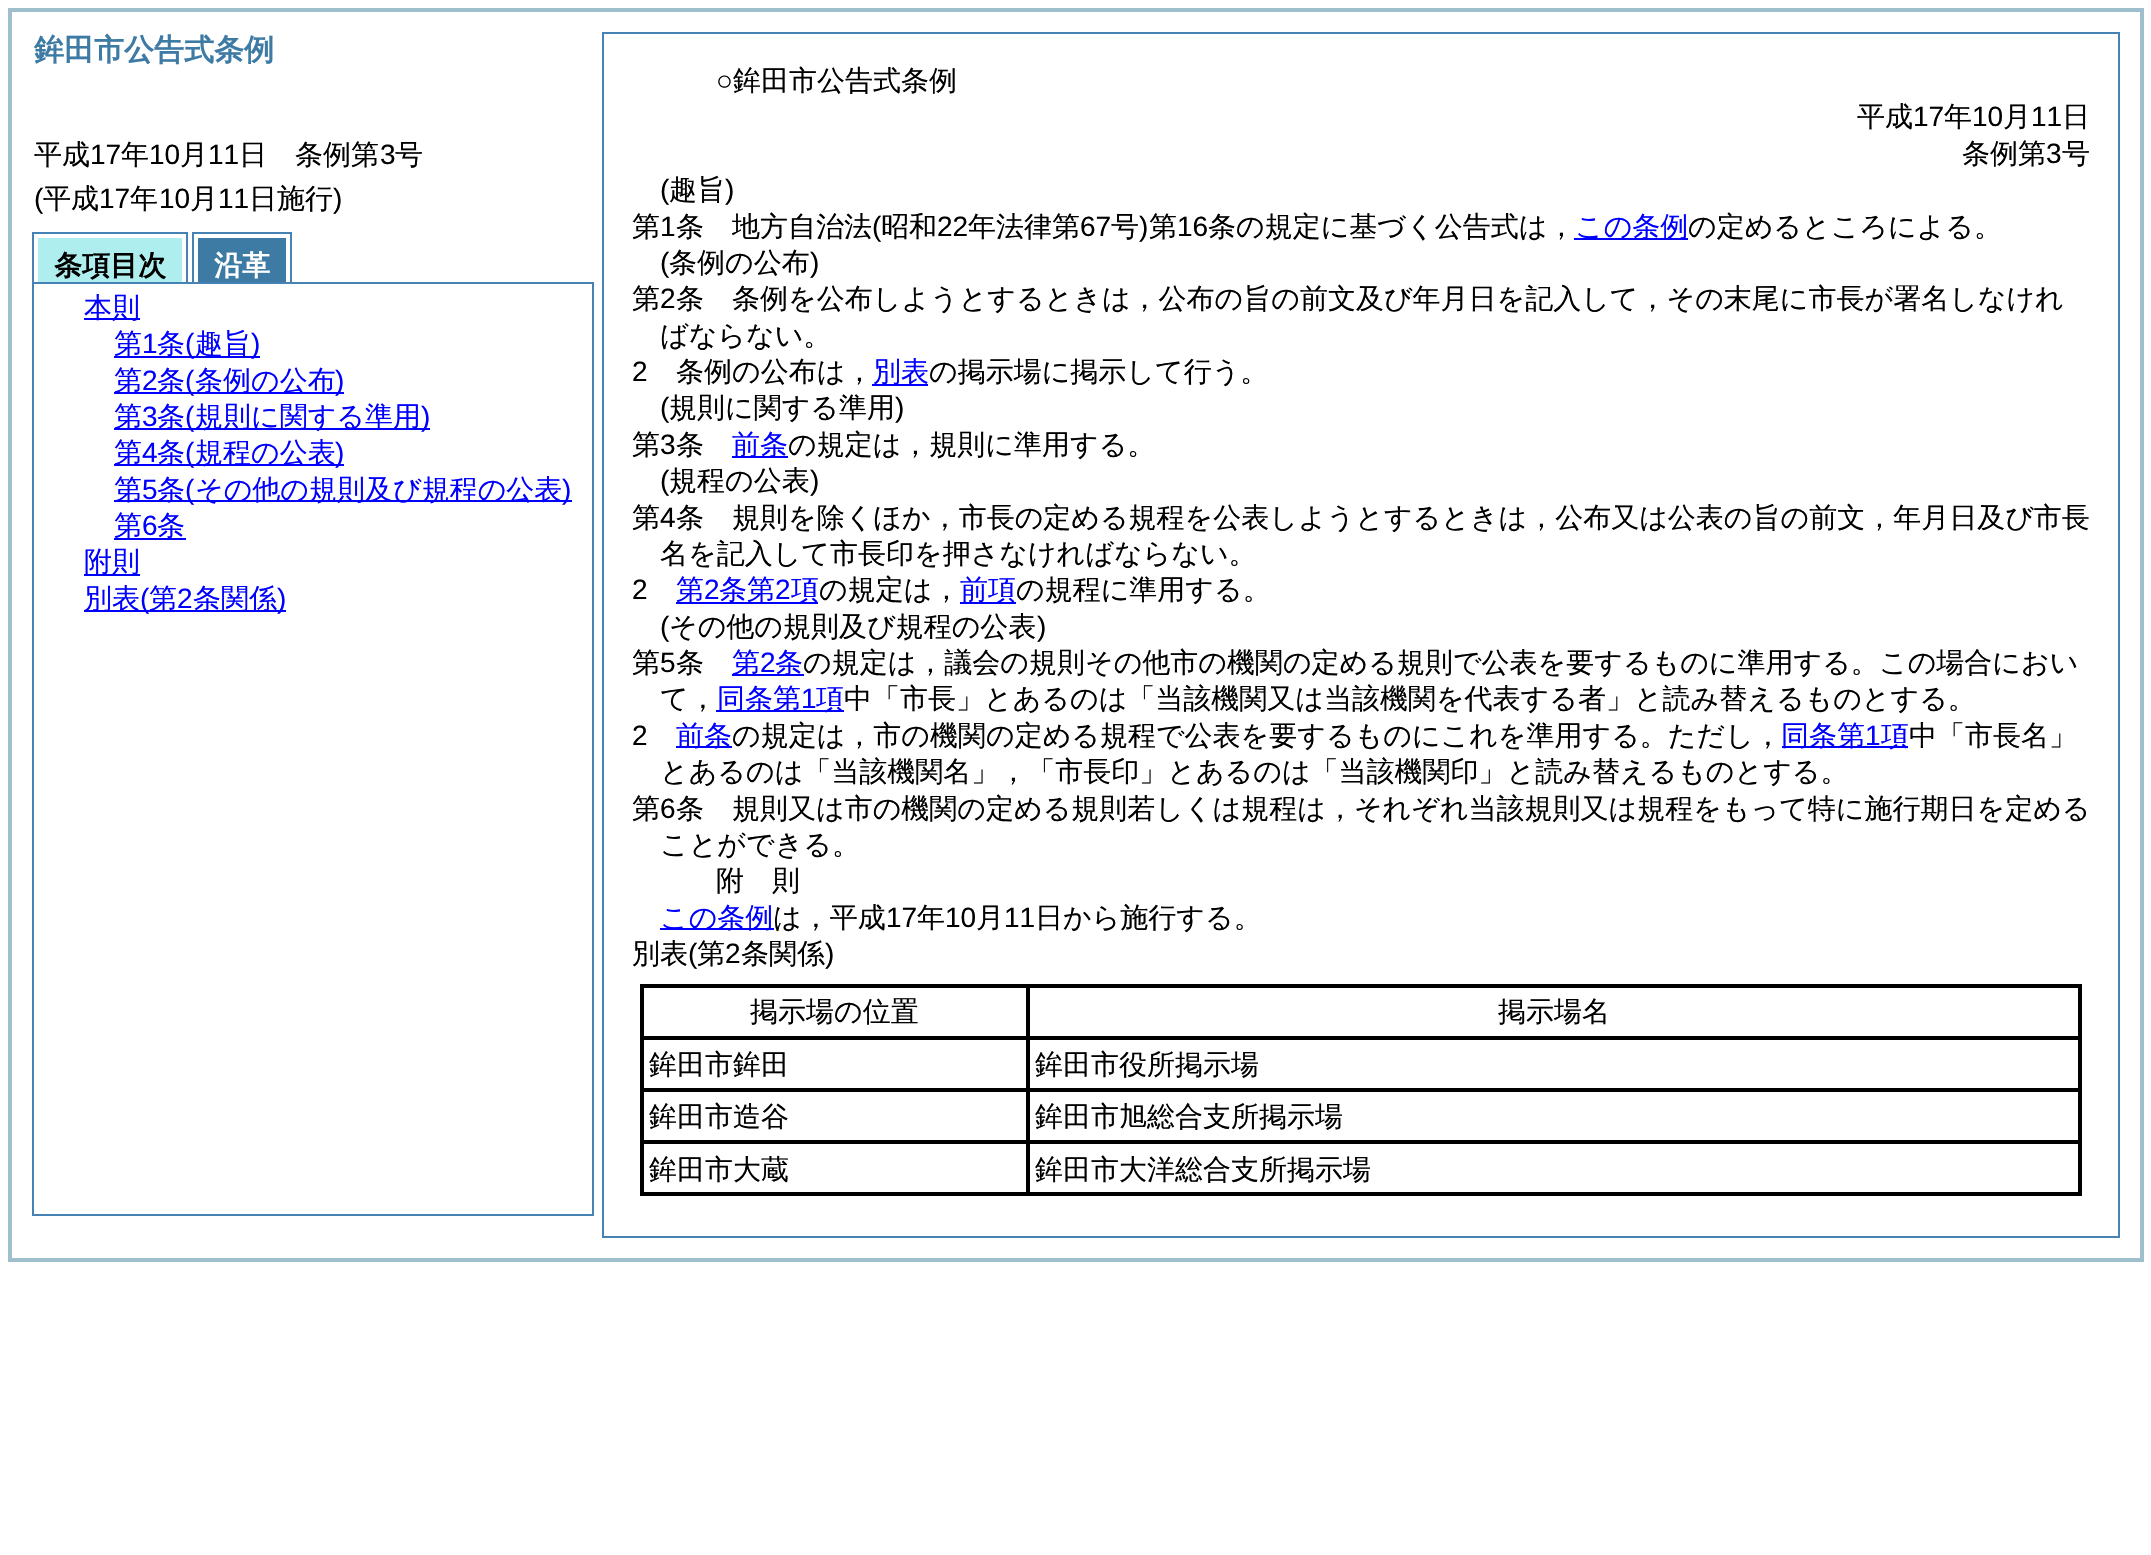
#include "include/core/SkBlurTypes.h"
#include "include/core/SkCanvas.h"
#include "include/core/SkData.h"
#include "include/core/SkFont.h"
#include "include/core/SkFontMgr.h"
#include "include/core/SkImage.h"
#include "include/core/SkMaskFilter.h"
#include "include/core/SkPaint.h"
#include "include/core/SkPathBuilder.h"
#include "include/core/SkTextBlob.h"
#include "include/effects/SkDashPathEffect.h"
#include "include/effects/SkGradientShader.h"
#include "include/utils/SkParsePath.h"

extern sk_sp<SkFontMgr> fontMgr;

void draw(SkCanvas* canvas) {
    SkPaint p;
    p.setAntiAlias(true);
    auto font = [&](const char* family, int weight, float size, bool italic = false) {
        SkFontStyle style(weight, SkFontStyle::kNormal_Width,
            italic ? SkFontStyle::kItalic_Slant : SkFontStyle::kUpright_Slant);
        SkFont result(fontMgr->matchFamilyStyle(family, style), size);
        result.setSubpixel(true);
        return result;
    };
    auto drawTracked = [&](const char* s, float x, float y, const SkFont& font, const SkPaint& ink, float letter, float word) {
        std::vector<SkGlyphID> glyphs(font.countText(s, strlen(s), SkTextEncoding::kUTF8));
        std::vector<float> xs(glyphs.size());
        font.textToGlyphs(s, strlen(s), SkTextEncoding::kUTF8, glyphs);
        font.getXPos(glyphs, xs, x);
        float extra = 0;
        for (size_t i = 0; i < glyphs.size(); i++) {
            xs[i] += extra;
            extra += letter + word * (glyphs[i] == font.unicharToGlyph(' '));
        }
        canvas->drawTextBlob(SkTextBlob::MakeFromPosHGlyphs(glyphs, xs, y, font), 0, 0, ink);
    };
    canvas->clear(0xFFFFFFFF);
    p.setStyle(SkPaint::kStroke_Style);
    p.setStrokeWidth(4);
    p.setColor(0xFFA0BFCC);
    canvas->drawRect(SkRect::MakeLTRB(10, 10, 2142, 1260), p);
    auto font1 = font("WenQuanYi Zen Hei", 700, 30);
    p.setStyle(SkPaint::kFill_Style);
    p.setColor(0xFF3D7AA4);
    canvas->drawString("鉾田市公告式条例", 34, 60, font1, p);
    auto font2 = font("WenQuanYi Zen Hei", 500, 28);
    p.setColor(0xFF000000);
    canvas->drawString("平成", 34, 164, font2, p);
    auto font3 = font("Liberation Sans", 400, 28);
    canvas->drawString("17", 90, 164, font3, p);
    canvas->drawString("年", 121, 164, font2, p);
    canvas->drawString("10", 149, 164, font3, p);
    canvas->drawString("月", 180, 164, font2, p);
    canvas->drawString("11", 208, 164, font3, p);
    canvas->drawString("日　条例第", 239, 164, font2, p);
    canvas->drawString("3", 380, 164, font3, p);
    canvas->drawString("号", 395, 164, font2, p);
    canvas->drawString("(", 34, 208, font3, p);
    canvas->drawString("平成", 43, 208, font2, p);
    canvas->drawString("17", 99, 208, font3, p);
    canvas->drawString("年", 130, 208, font2, p);
    canvas->drawString("10", 159, 208, font3, p);
    canvas->drawString("月", 190, 208, font2, p);
    canvas->drawString("11", 218, 208, font3, p);
    canvas->drawString("日施行", 249, 208, font2, p);
    canvas->drawString(")", 333, 208, font3, p);
    {
        const struct { float l, t, r, b; SkColor color; } items[] = {
            {32, 232, 188, 234, 0xFF4682B4},
            {186, 232, 188, 284, 0xFF4682B4},
            {32, 232, 34, 284, 0xFF4682B4},
            {38, 238, 182, 282, 0xFFAFEEEE},
        };
        for (auto [l, t, r, b, color] : items) {
            p.setColor(color);
            canvas->drawRect(SkRect::MakeLTRB(l, t, r, b), p);
        }
    }
    auto font4 = font("WenQuanYi Zen Hei", 700, 28);
    p.setColor(0xFF000000);
    canvas->drawString("条項目次", 54, 275, font4, p);
    {
        const struct { float l, t, r, b; SkColor color; } items[] = {
            {192, 232, 292, 234, 0xFF4682B4},
            {290, 232, 292, 284, 0xFF4682B4},
            {192, 232, 194, 284, 0xFF4682B4},
            {198, 238, 286, 282, 0xFF3D7AA4},
        };
        for (auto [l, t, r, b, color] : items) {
            p.setColor(color);
            canvas->drawRect(SkRect::MakeLTRB(l, t, r, b), p);
        }
    }
    p.setColor(0xFFFFFFFF);
    canvas->drawString("沿革", 214, 275, font4, p);
    p.setStyle(SkPaint::kStroke_Style);
    p.setStrokeWidth(2);
    p.setColor(0xFF4682B4);
    canvas->drawRect(SkRect::MakeLTRB(33, 283, 593, 1215), p);
    p.setStyle(SkPaint::kFill_Style);
    p.setColor(0xFF0000FF);
    canvas->drawRect(SkRect::MakeLTRB(84, 318, 140, 320), p);
    canvas->drawString("本則", 84, 317, font2, p);
    canvas->drawRect(SkRect::MakeLTRB(114, 356, 260, 358), p);
    canvas->drawString("第", 114, 353, font2, p);
    canvas->drawString("1", 142, 353, font3, p);
    canvas->drawString("条", 157, 353, font2, p);
    canvas->drawString("(", 185, 353, font3, p);
    canvas->drawString("趣旨", 195, 353, font2, p);
    canvas->drawString(")", 251, 353, font3, p);
    canvas->drawRect(SkRect::MakeLTRB(114, 392, 344, 394), p);
    canvas->drawString("第", 114, 390, font2, p);
    canvas->drawString("2", 142, 390, font3, p);
    canvas->drawString("条", 157, 390, font2, p);
    canvas->drawString("(", 185, 390, font3, p);
    canvas->drawString("条例の公布", 195, 390, font2, p);
    canvas->drawString(")", 335, 390, font3, p);
    canvas->drawRect(SkRect::MakeLTRB(114, 428, 430, 430), p);
    canvas->drawString("第", 114, 426, font2, p);
    canvas->drawString("3", 142, 426, font3, p);
    canvas->drawString("条", 157, 426, font2, p);
    canvas->drawString("(", 185, 426, font3, p);
    canvas->drawString("規則に関する準用", 195, 426, font2, p);
    canvas->drawString(")", 421, 426, font3, p);
    canvas->drawRect(SkRect::MakeLTRB(114, 464, 344, 466), p);
    canvas->drawString("第", 114, 462, font2, p);
    canvas->drawString("4", 142, 462, font3, p);
    canvas->drawString("条", 157, 462, font2, p);
    canvas->drawString("(", 185, 462, font3, p);
    canvas->drawString("規程の公表", 195, 462, font2, p);
    canvas->drawString(")", 335, 462, font3, p);
    canvas->drawRect(SkRect::MakeLTRB(114, 500, 572, 502), p);
    canvas->drawString("第", 114, 499, font2, p);
    canvas->drawString("5", 142, 499, font3, p);
    canvas->drawString("条", 157, 499, font2, p);
    canvas->drawString("(", 185, 499, font3, p);
    canvas->drawString("その他の規則及び規程の公表", 195, 499, font2, p);
    canvas->drawString(")", 562, 499, font3, p);
    canvas->drawRect(SkRect::MakeLTRB(114, 538, 186, 540), p);
    canvas->drawString("第", 114, 535, font2, p);
    canvas->drawString("6", 142, 535, font3, p);
    canvas->drawString("条", 157, 535, font2, p);
    canvas->drawRect(SkRect::MakeLTRB(84, 574, 140, 576), p);
    canvas->drawString("附則", 84, 571, font2, p);
    canvas->drawRect(SkRect::MakeLTRB(84, 610, 286, 612), p);
    canvas->drawString("別表", 84, 608, font2, p);
    canvas->drawString("(", 140, 608, font3, p);
    canvas->drawString("第", 149, 608, font2, p);
    canvas->drawString("2", 177, 608, font3, p);
    canvas->drawString("条関係", 193, 608, font2, p);
    canvas->drawString(")", 277, 608, font3, p);
    p.setStyle(SkPaint::kStroke_Style);
    p.setColor(0xFF4682B4);
    canvas->drawRect(SkRect::MakeLTRB(603, 33, 2119, 1237), p);
    p.setStyle(SkPaint::kFill_Style);
    p.setColor(0xFF000000);
    canvas->drawString("○", 716, 90, font3, p);
    canvas->drawString("鉾田市公告式条例", 733, 90, font2, p);
    canvas->drawString("平成", 1857, 126, font2, p);
    canvas->drawString("17", 1913, 126, font3, p);
    canvas->drawString("年", 1944, 126, font2, p);
    canvas->drawString("10", 1972, 126, font3, p);
    canvas->drawString("月", 2003, 126, font2, p);
    canvas->drawString("11", 2031, 126, font3, p);
    canvas->drawString("日", 2062, 126, font2, p);
    canvas->drawString("条例第", 1962, 163, font2, p);
    canvas->drawString("3", 2046, 163, font3, p);
    canvas->drawString("号", 2062, 163, font2, p);
    canvas->drawString("(", 660, 199, font3, p);
    canvas->drawString("趣旨", 669, 199, font2, p);
    canvas->drawString(")", 725, 199, font3, p);
    canvas->drawString("第", 632, 236, font2, p);
    canvas->drawString("1", 660, 236, font3, p);
    canvas->drawString("条", 676, 236, font2, p);
    canvas->drawString("地方自治法", 732, 236, font2, p);
    canvas->drawString("(", 872, 236, font3, p);
    canvas->drawString("昭和", 881, 236, font2, p);
    canvas->drawString("22", 937, 236, font3, p);
    canvas->drawString("年法律第", 968, 236, font2, p);
    canvas->drawString("67", 1080, 236, font3, p);
    canvas->drawString("号", 1111, 236, font2, p);
    canvas->drawString(")", 1139, 236, font3, p);
    canvas->drawString("第", 1149, 236, font2, p);
    canvas->drawString("16", 1177, 236, font3, p);
    canvas->drawString("条の規定に基づく公告式は，", 1208, 236, font2, p);
    p.setColor(0xFF0000FF);
    canvas->drawRect(SkRect::MakeLTRB(1574, 238, 1688, 240), p);
    canvas->drawString("この条例", 1575, 236, font2, p);
    p.setColor(0xFF000000);
    canvas->drawString("の定めるところによる。", 1688, 236, font2, p);
    canvas->drawString("(", 660, 272, font3, p);
    canvas->drawString("条例の公布", 669, 272, font2, p);
    canvas->drawString(")", 810, 272, font3, p);
    canvas->drawString("第", 632, 308, font2, p);
    canvas->drawString("2", 660, 308, font3, p);
    {
        const struct { const char* s; float x, y; } items[] = {
            {"条", 676, 308},
            {"条例を公布しようとするときは，公布の旨の前文及び年月日を記入して，その末尾に市長が署名しなけれ", 732, 308},
            {"ばならない。", 660, 345},
        };
        for (auto [s, x, y] : items) {
            canvas->drawString(s, x, y, font2, p);
        }
    }
    canvas->drawString("2", 632, 381, font3, p);
    canvas->drawString("条例の公布は，", 676, 381, font2, p);
    p.setColor(0xFF0000FF);
    canvas->drawRect(SkRect::MakeLTRB(872, 384, 928, 386), p);
    canvas->drawString("別表", 873, 381, font2, p);
    p.setColor(0xFF000000);
    canvas->drawString("の掲示場に掲示して行う。", 929, 381, font2, p);
    canvas->drawString("(", 660, 417, font3, p);
    canvas->drawString("規則に関する準用", 669, 417, font2, p);
    canvas->drawString(")", 895, 417, font3, p);
    canvas->drawString("第", 632, 454, font2, p);
    canvas->drawString("3", 660, 454, font3, p);
    canvas->drawString("条", 676, 454, font2, p);
    p.setColor(0xFF0000FF);
    canvas->drawRect(SkRect::MakeLTRB(732, 456, 788, 458), p);
    canvas->drawString("前条", 732, 454, font2, p);
    p.setColor(0xFF000000);
    canvas->drawString("の規定は，規則に準用する。", 788, 454, font2, p);
    canvas->drawString("(", 660, 490, font3, p);
    canvas->drawString("規程の公表", 669, 490, font2, p);
    canvas->drawString(")", 810, 490, font3, p);
    canvas->drawString("第", 632, 527, font2, p);
    canvas->drawString("4", 660, 527, font3, p);
    {
        const struct { const char* s; float x, y; } items[] = {
            {"条", 676, 527},
            {"規則を除くほか，市長の定める規程を公表しようとするときは，公布又は公表の旨の前文，年月日及び市長", 732, 527},
            {"名を記入して市長印を押さなければならない。", 660, 563},
        };
        for (auto [s, x, y] : items) {
            canvas->drawString(s, x, y, font2, p);
        }
    }
    canvas->drawString("2", 632, 599, font3, p);
    p.setColor(0xFF0000FF);
    canvas->drawRect(SkRect::MakeLTRB(676, 602, 818, 604), p);
    canvas->drawString("第", 676, 599, font2, p);
    canvas->drawString("2", 704, 599, font3, p);
    canvas->drawString("条第", 719, 599, font2, p);
    canvas->drawString("2", 775, 599, font3, p);
    canvas->drawString("項", 791, 599, font2, p);
    p.setColor(0xFF000000);
    canvas->drawString("の規定は，", 819, 599, font2, p);
    p.setColor(0xFF0000FF);
    canvas->drawRect(SkRect::MakeLTRB(960, 602, 1016, 604), p);
    canvas->drawString("前項", 960, 599, font2, p);
    p.setColor(0xFF000000);
    canvas->drawString("の規程に準用する。", 1016, 599, font2, p);
    canvas->drawString("(", 660, 636, font3, p);
    canvas->drawString("その他の規則及び規程の公表", 669, 636, font2, p);
    canvas->drawString(")", 1037, 636, font3, p);
    canvas->drawString("第", 632, 672, font2, p);
    canvas->drawString("5", 660, 672, font3, p);
    canvas->drawString("条", 676, 672, font2, p);
    p.setColor(0xFF0000FF);
    canvas->drawRect(SkRect::MakeLTRB(732, 674, 804, 676), p);
    canvas->drawString("第", 732, 672, font2, p);
    canvas->drawString("2", 760, 672, font3, p);
    canvas->drawString("条", 775, 672, font2, p);
    p.setColor(0xFF000000);
    {
        const struct { const char* s; float x, y; } items[] = {
            {"の規定は，議会の規則その他市の機関の定める規則で公表を要するものに準用する。", 803, 672},
            {"この場合におい", 1879, 672},
            {"て，", 660, 708},
        };
        for (auto [s, x, y] : items) {
            canvas->drawString(s, x, y, font2, p);
        }
    }
    p.setColor(0xFF0000FF);
    canvas->drawRect(SkRect::MakeLTRB(716, 710, 844, 712), p);
    canvas->drawString("同条第", 717, 708, font2, p);
    canvas->drawString("1", 801, 708, font3, p);
    canvas->drawString("項", 816, 708, font2, p);
    p.setColor(0xFF000000);
    canvas->drawString("中「市長」とあるのは「当該機関又は当該機関を代表する者」と読み替えるものとする。", 844, 708, font2, p);
    canvas->drawString("2", 632, 745, font3, p);
    p.setColor(0xFF0000FF);
    canvas->drawRect(SkRect::MakeLTRB(676, 746, 732, 748), p);
    canvas->drawString("前条", 676, 745, font2, p);
    p.setColor(0xFF000000);
    canvas->drawString("の規定は，市の機関の定める規程で公表を要するものにこれを準用する。ただし，", 732, 745, font2, p);
    p.setColor(0xFF0000FF);
    canvas->drawRect(SkRect::MakeLTRB(1782, 746, 1908, 748), p);
    canvas->drawString("同条第", 1781, 745, font2, p);
    canvas->drawString("1", 1865, 745, font3, p);
    canvas->drawString("項", 1881, 745, font2, p);
    p.setColor(0xFF000000);
    {
        const struct { const char* s; float x, y; } items[] = {
            {"中「市長名」", 1909, 745},
            {"とあるのは「当該機関名」，「市長印」とあるのは「当該機関印」と読み替えるものとする。", 660, 781},
            {"第", 632, 818},
        };
        for (auto [s, x, y] : items) {
            canvas->drawString(s, x, y, font2, p);
        }
    }
    canvas->drawString("6", 660, 818, font3, p);
    {
        const struct { const char* s; float x, y; } items[] = {
            {"条", 676, 818},
            {"規則又は市の機関の定める規則若しくは規程は，それぞれ当該規則又は規程をもって特に施行期日を定める", 732, 818},
            {"ことができる。", 660, 854},
        };
        for (auto [s, x, y] : items) {
            canvas->drawString(s, x, y, font2, p);
        }
    }
    drawTracked("附", 716, 890, font2, p, 28, 0);
    canvas->drawString("則", 772, 890, font2, p);
    p.setColor(0xFF0000FF);
    canvas->drawRect(SkRect::MakeLTRB(660, 928, 774, 930), p);
    canvas->drawString("この条例", 660, 927, font2, p);
    p.setColor(0xFF000000);
    canvas->drawString("は，平成", 773, 927, font2, p);
    canvas->drawString("17", 886, 927, font3, p);
    canvas->drawString("年", 917, 927, font2, p);
    canvas->drawString("10", 945, 927, font3, p);
    canvas->drawString("月", 976, 927, font2, p);
    canvas->drawString("11", 1004, 927, font3, p);
    canvas->drawString("日から施行する。", 1035, 927, font2, p);
    canvas->drawString("別表", 632, 963, font2, p);
    canvas->drawString("(", 688, 963, font3, p);
    canvas->drawString("第", 697, 963, font2, p);
    canvas->drawString("2", 725, 963, font3, p);
    canvas->drawString("条関係", 741, 963, font2, p);
    canvas->drawString(")", 825, 963, font3, p);
    p.setStyle(SkPaint::kStroke_Style);
    p.setStrokeWidth(4);
    canvas->drawRect(SkRect::MakeLTRB(642, 986, 1028, 1038), p);
    p.setStyle(SkPaint::kFill_Style);
    canvas->drawString("掲示場の位置", 750, 1021, font2, p);
    {
        const struct { float l, t, r, b; SkColor color; } items[] = {
            {1030, 984, 2082, 988, 0xFF000000},
            {2078, 984, 2082, 1196, 0xFF000000},
            {1030, 1036, 2082, 1040, 0xFF000000},
        };
        for (auto [l, t, r, b, color] : items) {
            p.setColor(color);
            canvas->drawRect(SkRect::MakeLTRB(l, t, r, b), p);
        }
    }
    canvas->drawString("掲示場名", 1498, 1021, font2, p);
    {
        const struct { float l, t, r, b; SkColor color; } items[] = {
            {1026, 1040, 1030, 1196, 0xFF000000},
            {640, 1088, 2082, 1092, 0xFF000000},
            {640, 1040, 644, 1092, 0xFF000000},
        };
        for (auto [l, t, r, b, color] : items) {
            p.setColor(color);
            canvas->drawRect(SkRect::MakeLTRB(l, t, r, b), p);
        }
    }
    canvas->drawString("鉾田市鉾田", 649, 1074, font2, p);
    canvas->drawString("鉾田市役所掲示場", 1035, 1074, font2, p);
    canvas->drawRect(SkRect::MakeLTRB(640, 1140, 2082, 1144), p);
    canvas->drawRect(SkRect::MakeLTRB(640, 1092, 644, 1144), p);
    canvas->drawString("鉾田市造谷", 649, 1126, font2, p);
    canvas->drawString("鉾田市旭総合支所掲示場", 1035, 1126, font2, p);
    canvas->drawRect(SkRect::MakeLTRB(640, 1192, 2082, 1196), p);
    canvas->drawRect(SkRect::MakeLTRB(640, 1144, 644, 1196), p);
    canvas->drawString("鉾田市大蔵", 649, 1179, font2, p);
    canvas->drawString("鉾田市大洋総合支所掲示場", 1035, 1179, font2, p);
}
